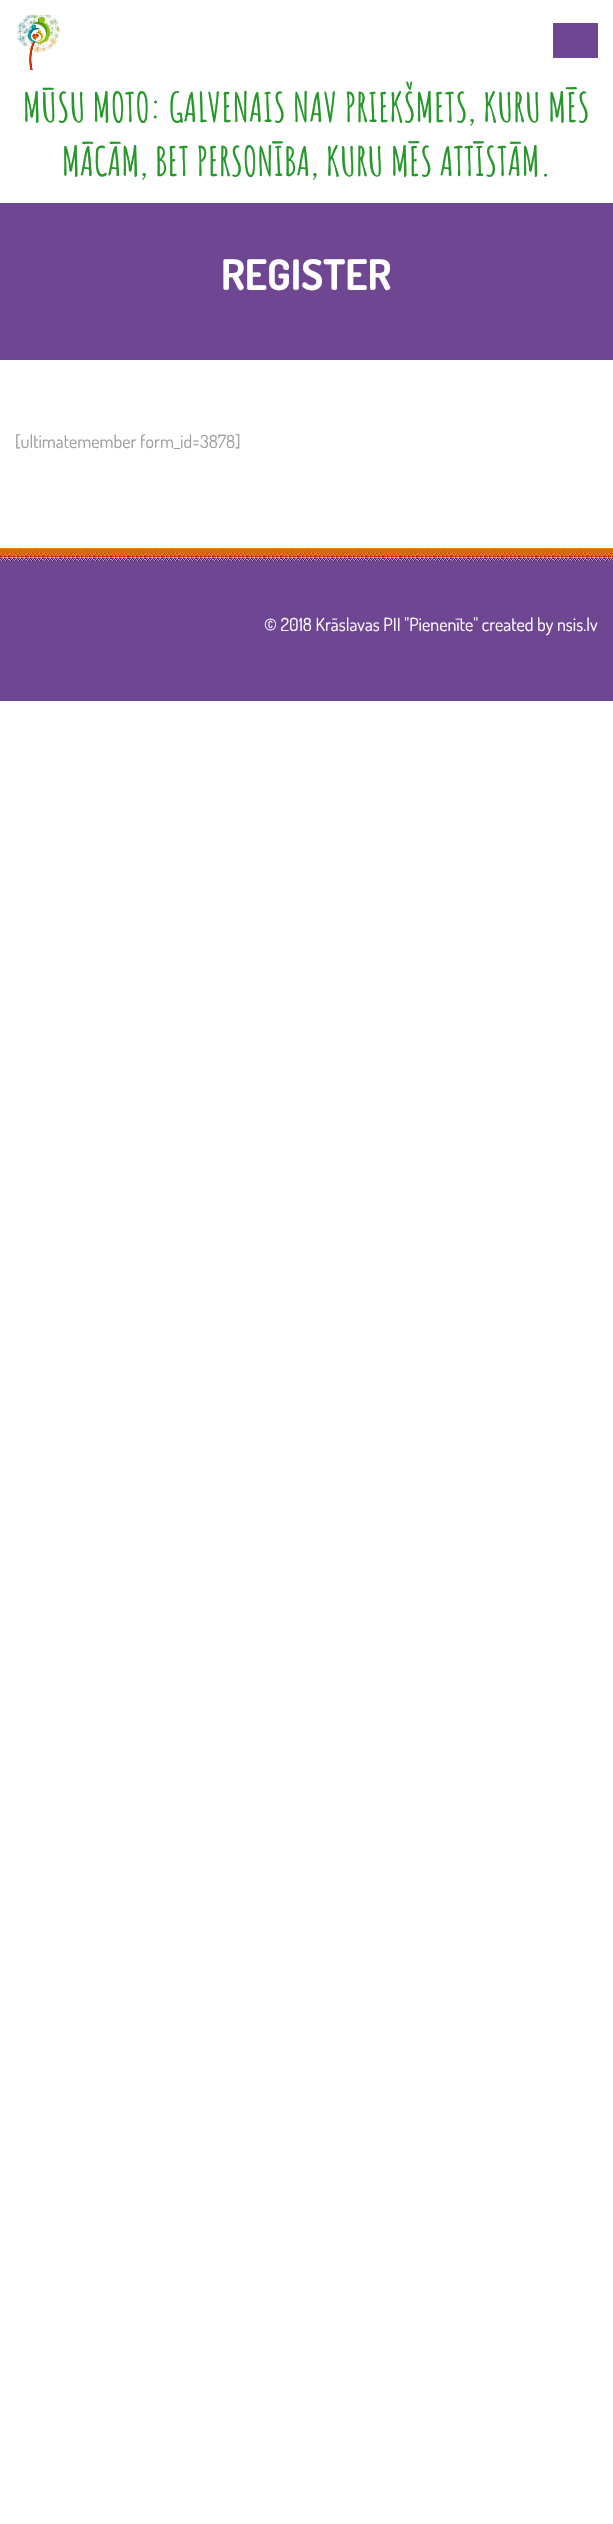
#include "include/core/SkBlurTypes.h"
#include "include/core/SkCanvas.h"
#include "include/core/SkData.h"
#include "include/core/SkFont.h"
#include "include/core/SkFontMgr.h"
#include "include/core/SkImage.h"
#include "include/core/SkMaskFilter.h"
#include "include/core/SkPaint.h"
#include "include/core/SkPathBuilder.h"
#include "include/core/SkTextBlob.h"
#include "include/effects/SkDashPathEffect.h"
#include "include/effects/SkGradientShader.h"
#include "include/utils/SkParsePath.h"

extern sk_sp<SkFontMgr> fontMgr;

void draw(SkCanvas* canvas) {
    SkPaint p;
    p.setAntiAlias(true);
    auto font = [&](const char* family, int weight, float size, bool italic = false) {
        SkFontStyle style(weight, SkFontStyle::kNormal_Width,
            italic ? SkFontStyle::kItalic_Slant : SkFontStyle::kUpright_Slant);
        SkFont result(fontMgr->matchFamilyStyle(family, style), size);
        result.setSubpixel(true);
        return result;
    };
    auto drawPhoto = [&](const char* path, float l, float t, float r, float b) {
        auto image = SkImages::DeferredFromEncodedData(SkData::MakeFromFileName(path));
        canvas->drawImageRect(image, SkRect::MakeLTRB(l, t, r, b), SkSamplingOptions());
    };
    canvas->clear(0xFFFFFFFF);
    drawPhoto("media/1.png", 17, 15, 61, 70);
    p.setColor(0xFF6E4692);
    canvas->drawRect(SkRect::MakeLTRB(553, 23, 598, 58), p);
    auto font1 = font("Amatic SC", 700, 40);
    p.setColor(0xFF26982B);
    canvas->drawString("MŪSU MOTO: GALVENAIS NAV PRIEKŠMETS, KURU MĒS", 23, 122, font1, p);
    canvas->drawString("MĀCĀM, BET PERSONĪBA, KURU MĒS ATTĪSTĀM.", 62, 176, font1, p);
    p.setColor(0xFF6E4692);
    canvas->drawRect(SkRect::MakeLTRB(0, 203, 613, 360), p);
    auto font2 = font("Dosis", 700, 42);
    p.setColor(0xFFFFFFFF);
    canvas->drawString("REGISTER", 221, 290, font2, p);
    auto font3 = font("Dosis", 400, 18);
    p.setColor(0xFF9C9C9C);
    canvas->drawString("[ultimatemember form_id=3878]", 15, 448, font3, p);
    p.setColor(0xFF6E4692);
    canvas->drawRect(SkRect::MakeLTRB(0, 558, 613, 701), p);
    drawPhoto("media/2.png", 0, 548, 613, 561);
    p.setColor(0xFFFFFFFF);
    canvas->drawString("© 2018 Krāslavas PII \"Pienenīte\" created by nsis.lv", 264, 631, font3, p);
}
